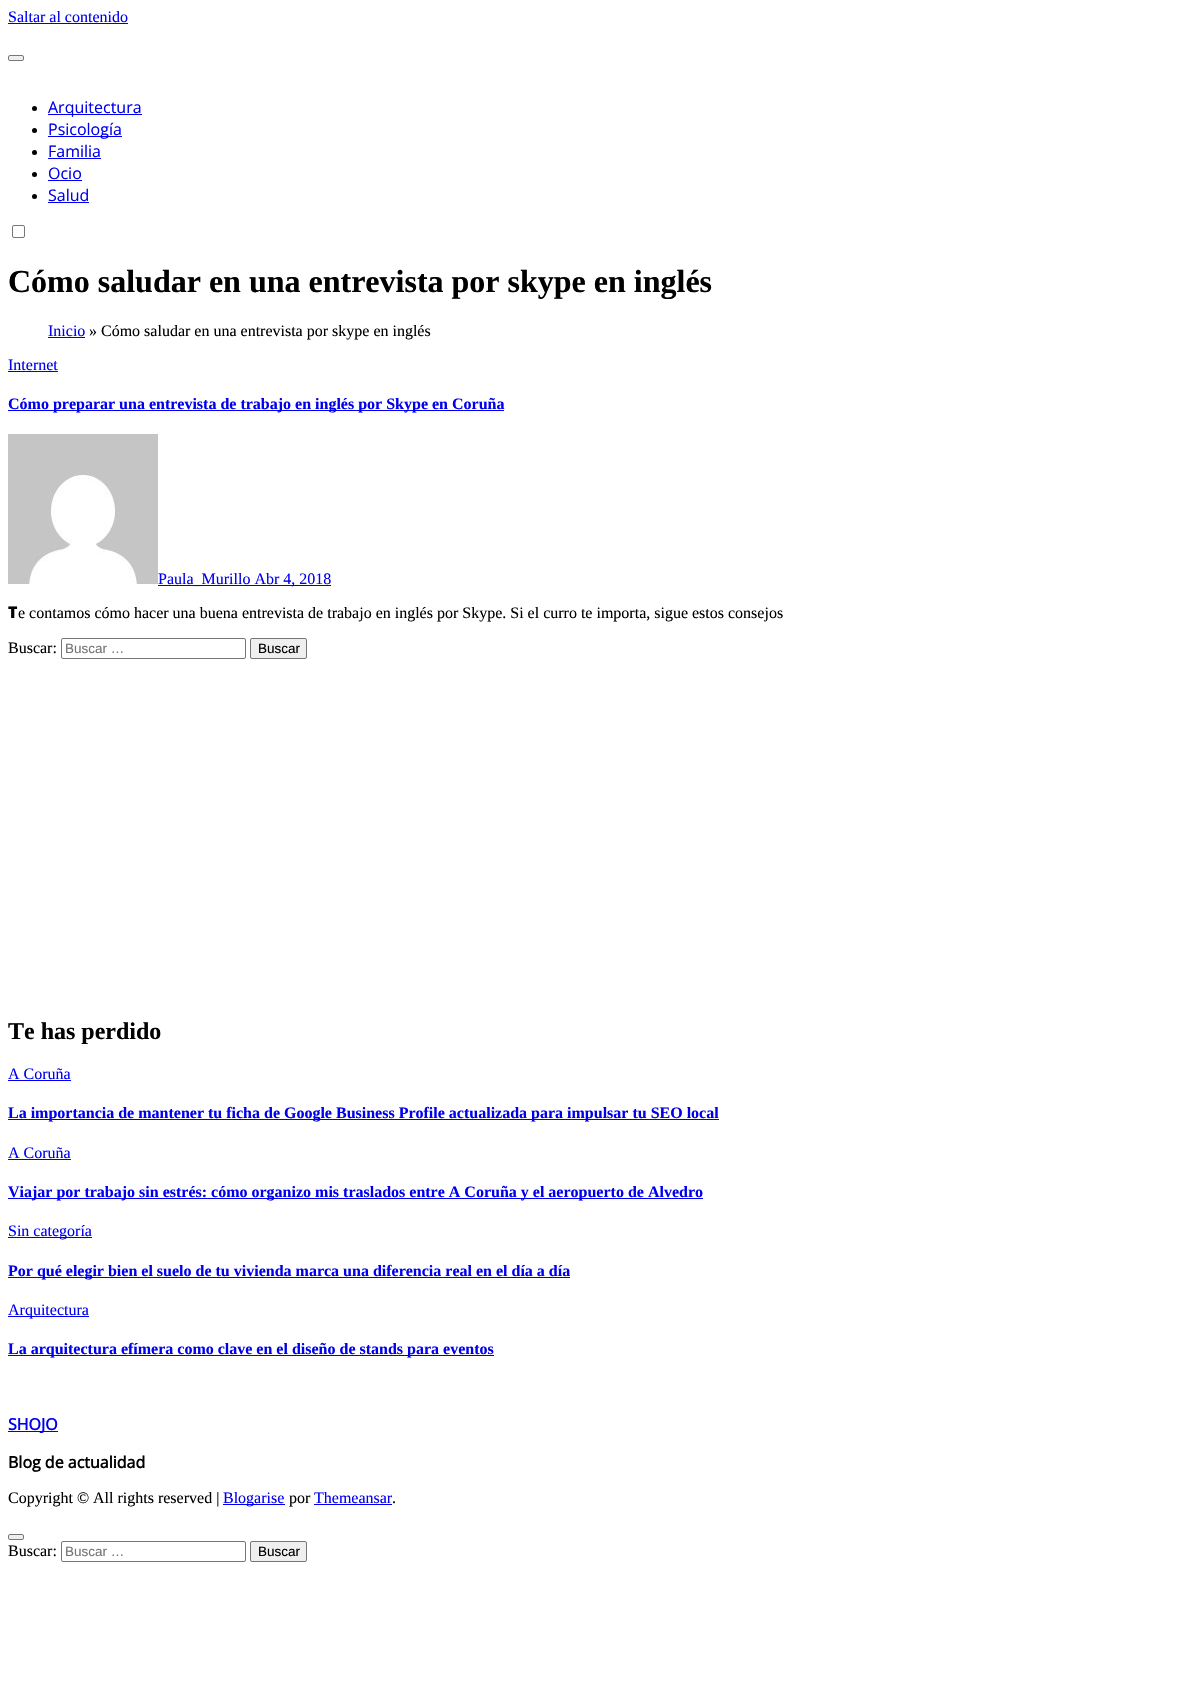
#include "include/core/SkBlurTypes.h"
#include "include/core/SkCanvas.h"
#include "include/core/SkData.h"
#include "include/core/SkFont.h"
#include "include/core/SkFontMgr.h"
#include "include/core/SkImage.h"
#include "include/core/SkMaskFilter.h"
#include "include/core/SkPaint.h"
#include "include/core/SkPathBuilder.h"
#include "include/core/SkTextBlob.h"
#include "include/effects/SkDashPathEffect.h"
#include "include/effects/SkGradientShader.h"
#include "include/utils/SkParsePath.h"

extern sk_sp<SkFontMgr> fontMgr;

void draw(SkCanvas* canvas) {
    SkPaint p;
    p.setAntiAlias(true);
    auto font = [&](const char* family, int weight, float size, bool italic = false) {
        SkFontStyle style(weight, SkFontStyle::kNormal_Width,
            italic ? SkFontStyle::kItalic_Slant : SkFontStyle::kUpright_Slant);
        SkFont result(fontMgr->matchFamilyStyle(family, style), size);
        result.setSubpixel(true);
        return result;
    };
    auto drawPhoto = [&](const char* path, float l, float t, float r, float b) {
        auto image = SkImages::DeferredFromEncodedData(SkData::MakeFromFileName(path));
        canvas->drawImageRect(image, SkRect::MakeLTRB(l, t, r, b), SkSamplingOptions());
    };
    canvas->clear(0xFFFFFFFF);
    auto font1 = font("Liberation Serif", 400, 16);
    p.setColor(0xFF0000EE);
    canvas->drawString("Saltar al contenido", 8, 22, font1, p);
    canvas->drawRect(SkRect::MakeLTRB(8, 23, 128, 24), p);
    p.setColor(0xFFEFEFEF);
    canvas->drawRoundRect(SkRect::MakeLTRB(8.5f, 55.5f, 23.5f, 60.5f), 1.5f, 1.5f, p);
    p.setStyle(SkPaint::kStroke_Style);
    p.setStrokeWidth(1);
    p.setColor(0xFF767676);
    canvas->drawRoundRect(SkRect::MakeLTRB(8.5f, 55.5f, 23.5f, 60.5f), 1.5f, 1.5f, p);
    p.setStyle(SkPaint::kFill_Style);
    p.setColor(0xFF000000);
    canvas->drawCircle(34.5f, 108.5f, 2.5f, p);
    p.setColor(0xFF0000EE);
    canvas->drawRect(SkRect::MakeLTRB(48, 114, 142, 115), p);
    auto font2 = font("Open Sans", 400, 16);
    canvas->drawString("Arquitectura", 48, 113, font2, p);
    p.setColor(0xFF000000);
    canvas->drawCircle(34.5f, 130.5f, 2.5f, p);
    p.setColor(0xFF0000EE);
    canvas->drawRect(SkRect::MakeLTRB(48, 136, 122, 137), p);
    canvas->drawString("Psicología", 48, 135, font2, p);
    p.setColor(0xFF000000);
    canvas->drawCircle(34.5f, 152.5f, 2.5f, p);
    p.setColor(0xFF0000EE);
    canvas->drawString("Familia", 48, 157, font2, p);
    canvas->drawRect(SkRect::MakeLTRB(48, 158, 101, 159), p);
    p.setColor(0xFF000000);
    canvas->drawCircle(34.5f, 174.5f, 2.5f, p);
    p.setColor(0xFF0000EE);
    canvas->drawString("Ocio", 48, 179, font2, p);
    canvas->drawRect(SkRect::MakeLTRB(48, 180, 82, 181), p);
    p.setColor(0xFF000000);
    canvas->drawCircle(34.5f, 196.5f, 2.5f, p);
    p.setColor(0xFF0000EE);
    canvas->drawString("Salud", 48, 201, font2, p);
    canvas->drawRect(SkRect::MakeLTRB(48, 202, 89, 203), p);
    p.setStyle(SkPaint::kStroke_Style);
    p.setColor(0xFF767676);
    canvas->drawRoundRect(SkRect::MakeLTRB(12.5f, 225.5f, 24.5f, 237.5f), 1.5f, 1.5f, p);
    auto font3 = font("Liberation Serif", 700, 32);
    p.setStyle(SkPaint::kFill_Style);
    p.setColor(0xFF000000);
    canvas->drawString("Cómo saludar en una entrevista por skype en inglés", 8, 292, font3, p);
    p.setColor(0xFF0000EE);
    canvas->drawString("Inicio", 48, 336, font1, p);
    canvas->drawRect(SkRect::MakeLTRB(48, 337, 85, 338), p);
    p.setColor(0xFF000000);
    canvas->drawString("» Cómo saludar en una entrevista por skype en inglés", 89, 336, font1, p);
    p.setColor(0xFF0000EE);
    canvas->drawString("Internet", 8, 370, font1, p);
    canvas->drawRect(SkRect::MakeLTRB(8, 371, 58, 372), p);
    canvas->drawRect(SkRect::MakeLTRB(8, 410, 504, 411), p);
    auto font4 = font("Liberation Serif", 700, 16);
    canvas->drawString("Cómo preparar una entrevista de trabajo en inglés por Skype en Coruña", 8, 409, font4, p);
    drawPhoto("media/1.png", 8, 434, 158, 584);
    canvas->drawRect(SkRect::MakeLTRB(158, 585, 331, 586), p);
    canvas->drawString("Paula_Murillo Abr 4, 2018", 158, 584, font1, p);
    auto font5 = font("Noto Sans", 900, 16);
    p.setColor(0xFF000000);
    canvas->drawString("T", 8, 618, font5, p);
    canvas->drawString("e contamos cómo hacer una buena entrevista de trabajo en inglés por Skype. Si el curro te importa, sigue estos consejos", 18, 618, font1, p);
    canvas->drawString("Buscar:", 8, 653, font1, p);
    p.setStyle(SkPaint::kStroke_Style);
    p.setColor(0xFF767676);
    canvas->drawRoundRect(SkRect::MakeLTRB(61.5f, 638.5f, 245.5f, 658.5f), 1.5f, 1.5f, p);
    auto font6 = font("Liberation Sans", 400, 13.5f);
    p.setStyle(SkPaint::kFill_Style);
    p.setColor(0xFF757575);
    canvas->drawString("Buscar …", 65, 653, font6, p);
    p.setColor(0xFFEFEFEF);
    canvas->drawRoundRect(SkRect::MakeLTRB(250.5f, 638.5f, 306.5f, 658.5f), 1.5f, 1.5f, p);
    p.setStyle(SkPaint::kStroke_Style);
    p.setColor(0xFF767676);
    canvas->drawRoundRect(SkRect::MakeLTRB(250.5f, 638.5f, 306.5f, 658.5f), 1.5f, 1.5f, p);
    p.setStyle(SkPaint::kFill_Style);
    p.setColor(0xFF000000);
    canvas->drawString("Buscar", 258, 653, font6, p);
    auto font7 = font("Liberation Serif", 700, 24);
    canvas->drawString("Te has perdido", 8, 1039, font7, p);
    p.setColor(0xFF0000EE);
    canvas->drawString("A Coruña", 8, 1079, font1, p);
    canvas->drawRect(SkRect::MakeLTRB(8, 1080, 71, 1081), p);
    canvas->drawRect(SkRect::MakeLTRB(8, 1119, 719, 1120), p);
    canvas->drawString("La importancia de mantener tu ficha de Google Business Profile actualizada para impulsar tu SEO local", 8, 1118, font4, p);
    canvas->drawString("A Coruña", 8, 1158, font1, p);
    canvas->drawRect(SkRect::MakeLTRB(8, 1159, 71, 1160), p);
    canvas->drawRect(SkRect::MakeLTRB(8, 1198, 703, 1199), p);
    canvas->drawString("Viajar por trabajo sin estrés: cómo organizo mis traslados entre A Coruña y el aeropuerto de Alvedro", 8, 1197, font4, p);
    canvas->drawRect(SkRect::MakeLTRB(8, 1237, 92, 1238), p);
    canvas->drawString("Sin categoría", 8, 1236, font1, p);
    canvas->drawRect(SkRect::MakeLTRB(8, 1277, 570, 1278), p);
    canvas->drawString("Por qué elegir bien el suelo de tu vivienda marca una diferencia real en el día a día", 8, 1276, font4, p);
    canvas->drawRect(SkRect::MakeLTRB(8, 1316, 89, 1317), p);
    canvas->drawString("Arquitectura", 8, 1315, font1, p);
    canvas->drawRect(SkRect::MakeLTRB(8, 1355, 494, 1356), p);
    canvas->drawString("La arquitectura efímera como clave en el diseño de stands para eventos", 8, 1354, font4, p);
    canvas->drawRect(SkRect::MakeLTRB(8, 1431, 58, 1432), p);
    auto font8 = font("Open Sans", 700, 16);
    canvas->drawString("SHOJO", 8, 1430, font8, p);
    p.setColor(0xFF000000);
    canvas->drawString("Blog de actualidad", 8, 1468, font8, p);
    canvas->drawString("Copyright © All rights reserved |", 8, 1503, font1, p);
    p.setColor(0xFF0000EE);
    canvas->drawRect(SkRect::MakeLTRB(223, 1504, 285, 1505), p);
    canvas->drawString("Blogarise", 223, 1503, font1, p);
    p.setColor(0xFF000000);
    canvas->drawString("por", 289, 1503, font1, p);
    p.setColor(0xFF0000EE);
    canvas->drawString("Themeansar", 314, 1503, font1, p);
    canvas->drawRect(SkRect::MakeLTRB(314, 1504, 392, 1505), p);
    p.setColor(0xFF000000);
    canvas->drawString(".", 392, 1503, font1, p);
    p.setColor(0xFFEFEFEF);
    canvas->drawRoundRect(SkRect::MakeLTRB(8.5f, 1534.5f, 23.5f, 1539.5f), 1.5f, 1.5f, p);
    p.setStyle(SkPaint::kStroke_Style);
    p.setColor(0xFF767676);
    canvas->drawRoundRect(SkRect::MakeLTRB(8.5f, 1534.5f, 23.5f, 1539.5f), 1.5f, 1.5f, p);
    p.setStyle(SkPaint::kFill_Style);
    p.setColor(0xFF000000);
    canvas->drawString("Buscar:", 8, 1556, font1, p);
    p.setStyle(SkPaint::kStroke_Style);
    p.setColor(0xFF767676);
    canvas->drawRoundRect(SkRect::MakeLTRB(61.5f, 1541.5f, 245.5f, 1561.5f), 1.5f, 1.5f, p);
    p.setStyle(SkPaint::kFill_Style);
    p.setColor(0xFF757575);
    canvas->drawString("Buscar …", 65, 1556, font6, p);
    p.setColor(0xFFEFEFEF);
    canvas->drawRoundRect(SkRect::MakeLTRB(250.5f, 1541.5f, 306.5f, 1561.5f), 1.5f, 1.5f, p);
    p.setStyle(SkPaint::kStroke_Style);
    p.setColor(0xFF767676);
    canvas->drawRoundRect(SkRect::MakeLTRB(250.5f, 1541.5f, 306.5f, 1561.5f), 1.5f, 1.5f, p);
    p.setStyle(SkPaint::kFill_Style);
    p.setColor(0xFF000000);
    canvas->drawString("Buscar", 258, 1556, font6, p);
}
